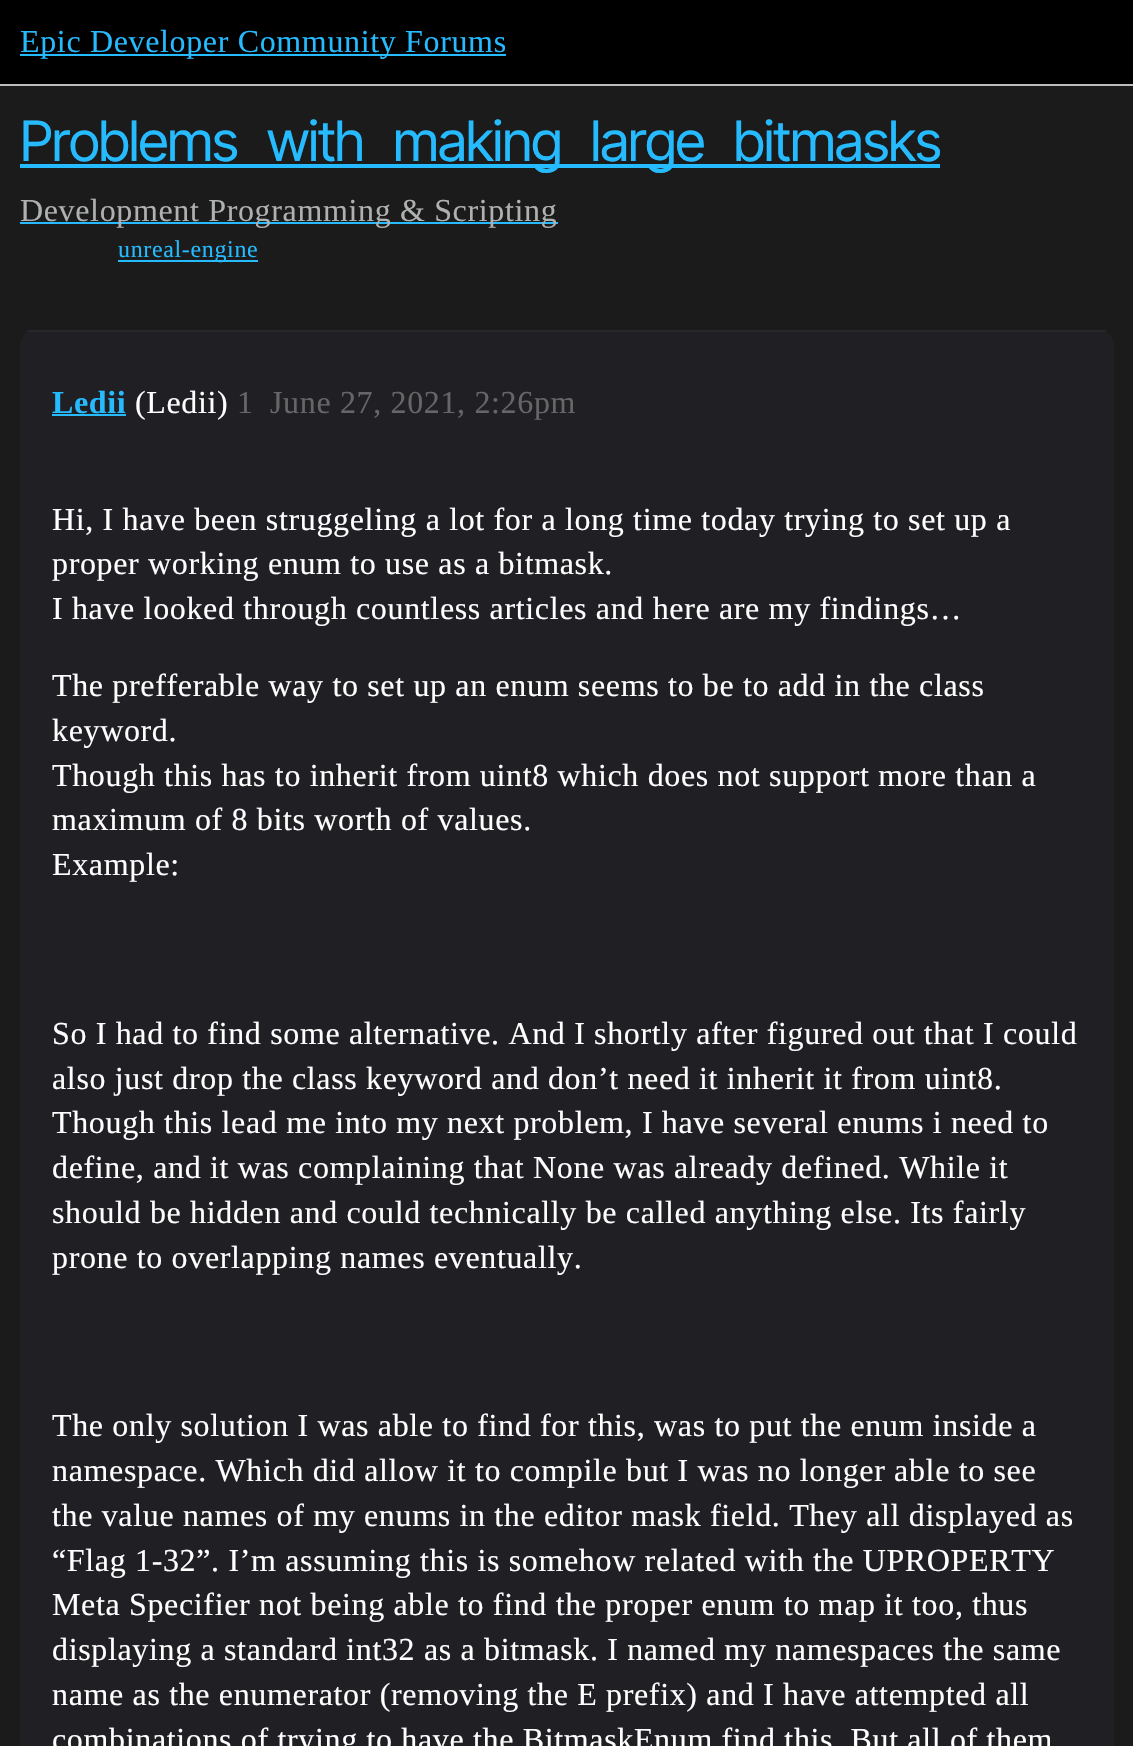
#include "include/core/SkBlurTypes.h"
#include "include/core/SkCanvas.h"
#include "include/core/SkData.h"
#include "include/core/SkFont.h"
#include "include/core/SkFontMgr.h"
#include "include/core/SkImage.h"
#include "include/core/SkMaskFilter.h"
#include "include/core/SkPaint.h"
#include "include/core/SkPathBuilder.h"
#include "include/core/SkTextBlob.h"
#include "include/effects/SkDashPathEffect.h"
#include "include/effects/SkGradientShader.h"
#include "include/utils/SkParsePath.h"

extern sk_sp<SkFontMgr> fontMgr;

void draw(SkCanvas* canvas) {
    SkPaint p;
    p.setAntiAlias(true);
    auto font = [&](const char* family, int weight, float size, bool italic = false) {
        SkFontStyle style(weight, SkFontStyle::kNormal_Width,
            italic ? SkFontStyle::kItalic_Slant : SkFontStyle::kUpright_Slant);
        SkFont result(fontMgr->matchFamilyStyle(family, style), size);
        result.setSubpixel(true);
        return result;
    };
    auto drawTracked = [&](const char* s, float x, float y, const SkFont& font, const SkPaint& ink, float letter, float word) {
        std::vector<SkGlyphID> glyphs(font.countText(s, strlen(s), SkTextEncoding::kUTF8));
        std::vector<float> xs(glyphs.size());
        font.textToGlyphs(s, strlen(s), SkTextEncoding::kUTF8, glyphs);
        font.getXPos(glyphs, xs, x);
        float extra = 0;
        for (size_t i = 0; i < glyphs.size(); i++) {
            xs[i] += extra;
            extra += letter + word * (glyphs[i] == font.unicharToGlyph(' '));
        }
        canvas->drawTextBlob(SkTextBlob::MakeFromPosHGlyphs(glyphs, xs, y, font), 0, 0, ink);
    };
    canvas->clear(0xFF1B1B1B);
    {
        const struct { float l, t, r, b; SkColor color; } items[] = {
            {0, 0, 1133, 84, 0xFF000000},
            {0, 84, 1133, 86, 0xFFBDBDBD},
            {20, 54, 506, 56, 0xFF26BBFF},
        };
        for (auto [l, t, r, b, color] : items) {
            p.setColor(color);
            canvas->drawRect(SkRect::MakeLTRB(l, t, r, b), p);
        }
    }
    auto font1 = font("Liberation Serif", 400, 32);
    drawTracked("Epic Developer Community Forums", 20, 52, font1, p, 0.65f, 0);
    canvas->drawRect(SkRect::MakeLTRB(20, 164, 940, 168), p);
    auto font2 = font("Inter Tight", 400, 55.75f);
    drawTracked("Problems with making large bitmasks", 20, 161, font2, p, -1, 17);
    canvas->drawRect(SkRect::MakeLTRB(20, 222, 558, 224), p);
    p.setColor(0xFFAFB0B0);
    drawTracked("Development Programming & Scripting", 20, 221, font1, p, 0.65f, 0);
    p.setColor(0xFF26BBFF);
    canvas->drawRect(SkRect::MakeLTRB(118, 260, 258, 262), p);
    auto font3 = font("Liberation Serif", 400, 24);
    drawTracked("unreal-engine", 118, 257, font3, p, 0.65f, 0);
    p.setColor(0xFF202024);
    canvas->drawRoundRect(SkRect::MakeLTRB(20, 330, 1114, 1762), 16, 16, p);
    p.setColor(0xFF28282C);
    canvas->drawRect(SkRect::MakeLTRB(28, 330, 1106, 332), p);
    auto font4 = font("Liberation Serif", 700, 32);
    p.setColor(0xFF26BBFF);
    drawTracked("Ledii", 52, 413, font4, p, 0.65f, 0);
    canvas->drawRect(SkRect::MakeLTRB(52, 414, 126, 416), p);
    p.setColor(0xFFFFFFFF);
    drawTracked("(Ledii)", 135, 413, font1, p, 0.65f, 0);
    p.setColor(0xFF666666);
    drawTracked("1", 237, 413, font1, p, 0.65f, 0);
    drawTracked("June 27, 2021, 2:26pm", 270, 413, font1, p, 0.65f, 0);
    p.setColor(0xFFFFFFFF);
    {
        const struct { const char* s; float x, y; } items[] = {
            {"Hi, I have been struggeling a lot for a long time today trying to set up a", 52, 530},
            {"proper working enum to use as a bitmask.", 52, 574},
            {"I have looked through countless articles and here are my findings…", 52, 619},
            {"The prefferable way to set up an enum seems to be to add in the class", 52, 696},
            {"keyword.", 52, 741},
            {"Though this has to inherit from uint8 which does not support more than a", 52, 786},
            {"maximum of 8 bits worth of values.", 52, 830},
            {"Example:", 52, 875},
            {"So I had to find some alternative. And I shortly after figured out that I could", 52, 1044},
            {"also just drop the class keyword and don’t need it inherit it from uint8.", 52, 1089},
            {"Though this lead me into my next problem, I have several enums i need to", 52, 1133},
            {"define, and it was complaining that None was already defined. While it", 52, 1178},
            {"should be hidden and could technically be called anything else. Its fairly", 52, 1223},
            {"prone to overlapping names eventually.", 52, 1268},
            {"The only solution I was able to find for this, was to put the enum inside a", 52, 1436},
            {"namespace. Which did allow it to compile but I was no longer able to see", 52, 1481},
            {"the value names of my enums in the editor mask field. They all displayed as", 52, 1526},
            {"“Flag 1-32”. I’m assuming this is somehow related with the UPROPERTY", 52, 1571},
            {"Meta Specifier not being able to find the proper enum to map it too, thus", 52, 1615},
            {"displaying a standard int32 as a bitmask. I named my namespaces the same", 52, 1660},
            {"name as the enumerator (removing the E prefix) and I have attempted all", 52, 1705},
            {"combinations of trying to have the BitmaskEnum find this. But all of them", 52, 1750},
        };
        for (auto [s, x, y] : items) {
            drawTracked(s, x, y, font1, p, 0.65f, 0);
        }
    }
}
